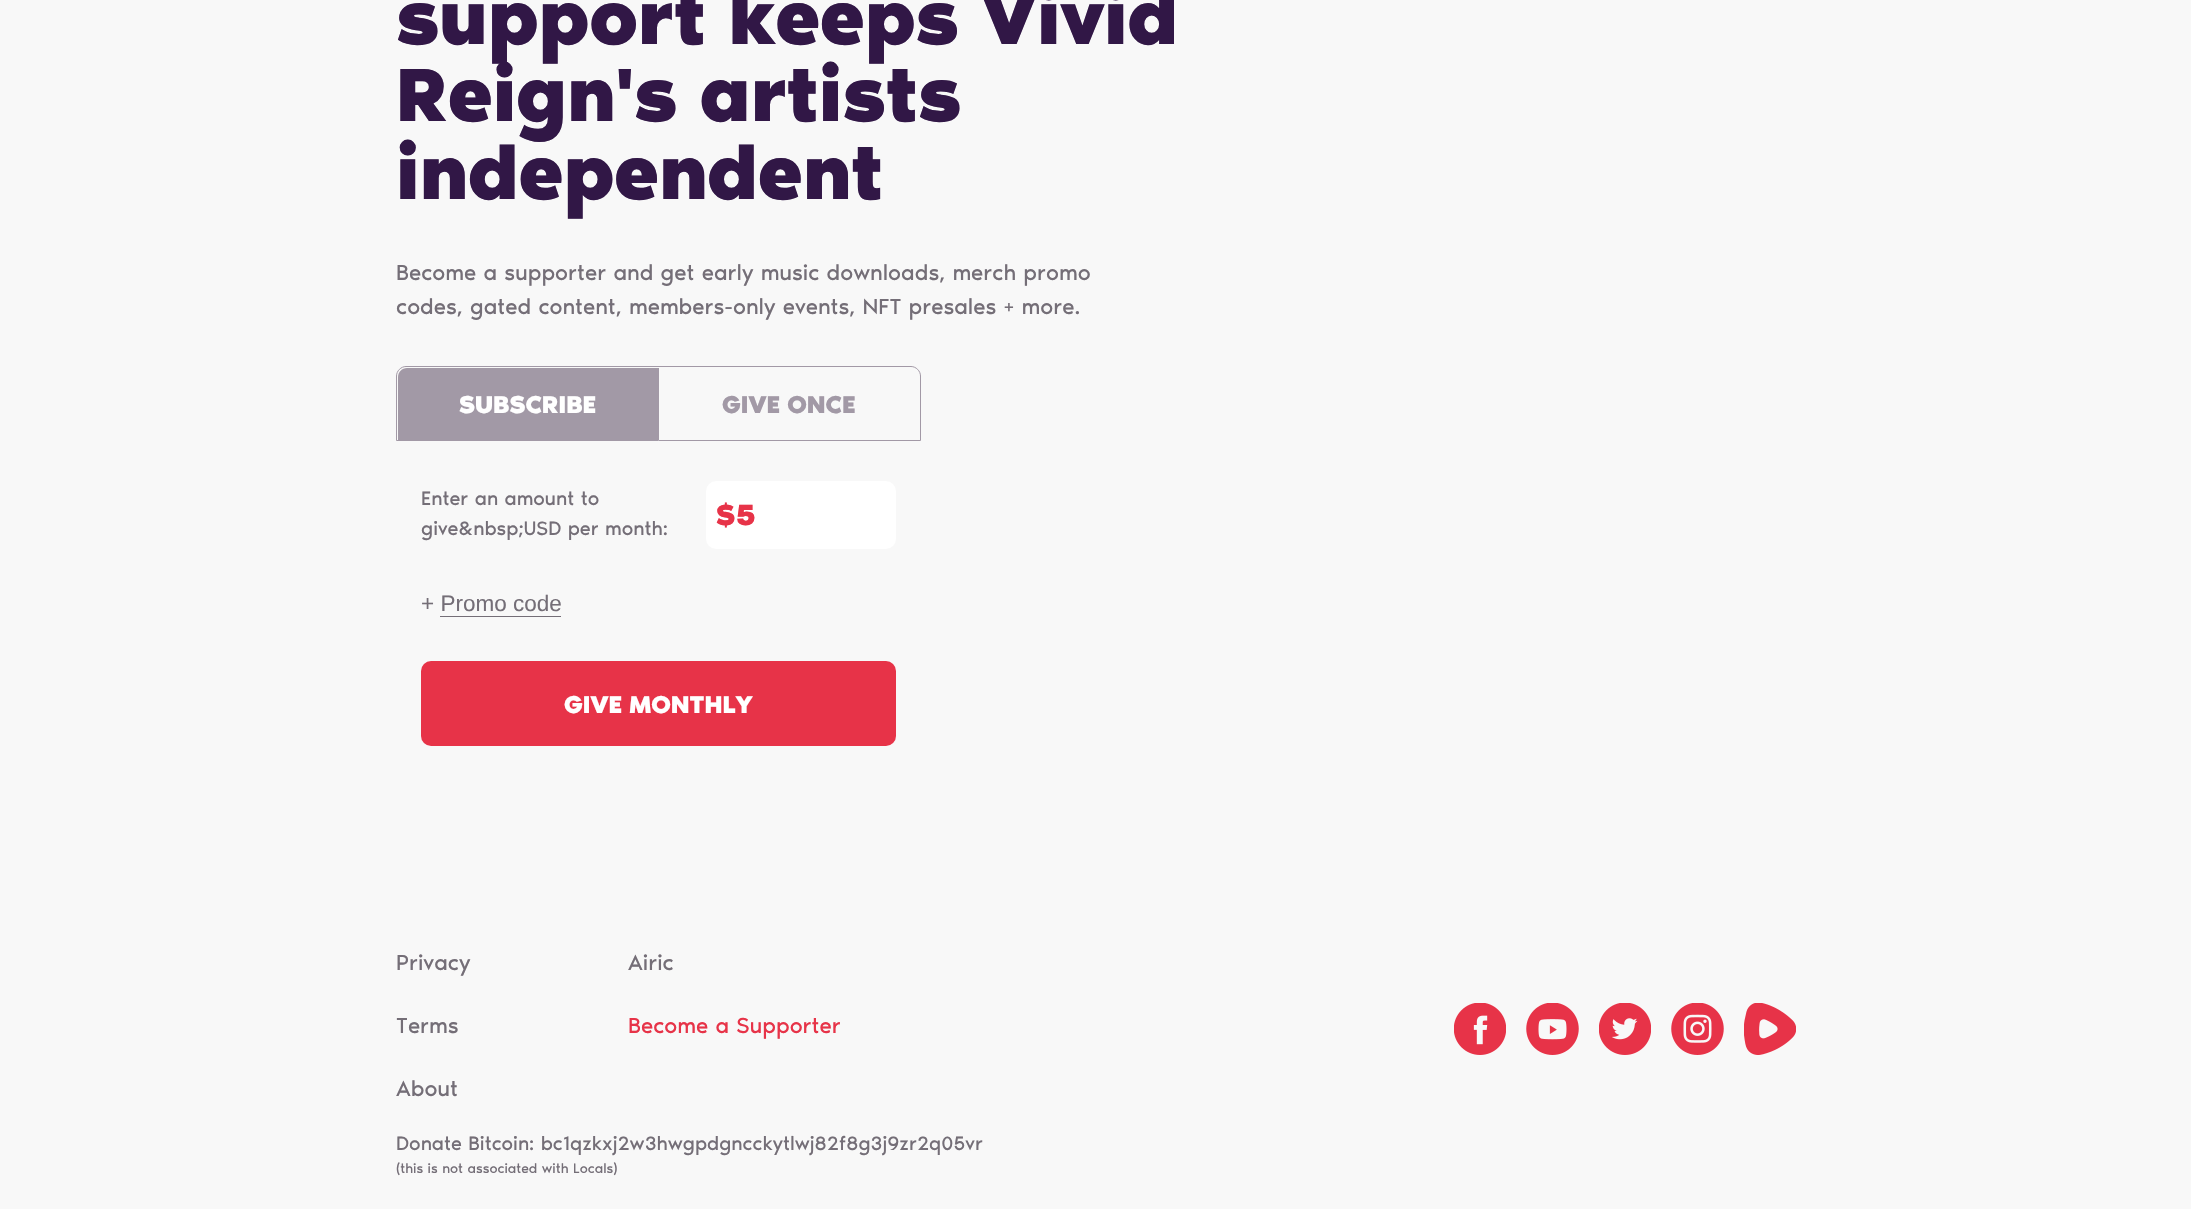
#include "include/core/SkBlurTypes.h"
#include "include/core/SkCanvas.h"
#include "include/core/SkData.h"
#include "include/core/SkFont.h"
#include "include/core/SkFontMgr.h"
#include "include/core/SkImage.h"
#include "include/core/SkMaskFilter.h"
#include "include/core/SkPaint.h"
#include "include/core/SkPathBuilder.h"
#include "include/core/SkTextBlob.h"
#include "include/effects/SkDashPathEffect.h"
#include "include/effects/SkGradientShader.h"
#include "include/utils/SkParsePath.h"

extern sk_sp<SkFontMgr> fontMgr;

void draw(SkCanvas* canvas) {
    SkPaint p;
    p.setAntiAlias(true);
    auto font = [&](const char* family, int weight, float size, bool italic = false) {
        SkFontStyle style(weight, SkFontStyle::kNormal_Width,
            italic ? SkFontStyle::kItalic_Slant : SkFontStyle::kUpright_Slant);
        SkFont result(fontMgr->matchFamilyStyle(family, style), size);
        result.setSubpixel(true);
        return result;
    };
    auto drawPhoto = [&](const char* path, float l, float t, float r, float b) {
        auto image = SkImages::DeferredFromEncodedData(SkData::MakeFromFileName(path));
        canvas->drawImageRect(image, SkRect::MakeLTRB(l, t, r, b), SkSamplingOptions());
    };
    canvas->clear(0xFFF8F8F8);
    auto font1 = font("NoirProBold", 700, 77.5f);
    p.setColor(0xFF311746);
    {
        const struct { const char* s; float x, y; } items[] = {
            {"support keeps Vivid", 396, 44},
            {"Reign's artists", 396, 121},
            {"independent", 396, 199},
        };
        for (auto [s, x, y] : items) {
            canvas->drawString(s, x, y, font1, p);
        }
    }
    auto font2 = font("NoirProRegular", 400, 22.5f);
    p.setColor(0xFF746E77);
    canvas->drawString("Become a supporter and get early music downloads, merch promo", 396, 280, font2, p);
    canvas->drawString("codes, gated content, members-only events, NFT presales + more.", 396, 314, font2, p);
    p.setStyle(SkPaint::kStroke_Style);
    p.setStrokeWidth(1);
    p.setColor(0xFFA299A6);
    canvas->drawPath(SkPathBuilder().moveTo(406, 366.5f).lineTo(911, 366.5f).cubicTo(916, 366.5f, 920.5f, 371, 920.5f, 376).lineTo(920.5f, 440.5f).lineTo(396.5f, 440.5f).lineTo(396.5f, 376).cubicTo(396.5f, 371, 401, 366.5f, 406, 366.5f).close().detach(), p);
    p.setStyle(SkPaint::kFill_Style);
    canvas->drawPath(SkPathBuilder().moveTo(407, 368).lineTo(659, 368).lineTo(659, 440).lineTo(398, 440).lineTo(398, 377).cubicTo(398, 372, 402, 368, 407, 368).close().detach(), p);
    auto font3 = font("NoirProBold", 700, 25);
    p.setColor(0xFFFFFFFF);
    canvas->drawString("SUBSCRIBE", 459, 413, font3, p);
    p.setColor(0xFFA299A6);
    canvas->drawString("GIVE ONCE", 722, 413, font3, p);
    auto font4 = font("NoirProRegular", 400, 20);
    p.setColor(0xFF746E77);
    canvas->drawString("Enter an amount to", 421, 505, font4, p);
    canvas->drawString("give&nbsp;USD per month:", 421, 535, font4, p);
    p.setColor(0xFFFFFFFF);
    canvas->drawRoundRect(SkRect::MakeLTRB(706, 481, 896, 549), 10, 10, p);
    auto font5 = font("NoirProBold", 700, 30);
    p.setColor(0xFFE73348);
    canvas->drawString("$", 716, 525, font5, p);
    canvas->drawString("5", 736, 525, font5, p);
    auto font6 = font("Liberation Sans", 400, 22.5f);
    p.setColor(0xFF746E77);
    canvas->drawString("+ Promo code", 421, 611, font6, p);
    canvas->drawRect(SkRect::MakeLTRB(440, 616, 561, 617), p);
    p.setColor(0xFFE73348);
    canvas->drawRoundRect(SkRect::MakeLTRB(421, 661, 896, 746), 10, 10, p);
    p.setColor(0xFFFFFFFF);
    canvas->drawString("GIVE MONTHLY", 564, 713, font3, p);
    p.setColor(0xFF746E77);
    {
        const struct { const char* s; float x, y; } items[] = {
            {"Privacy", 396, 970},
            {"Airic", 628, 970},
            {"Terms", 396, 1033},
        };
        for (auto [s, x, y] : items) {
            canvas->drawString(s, x, y, font2, p);
        }
    }
    p.setColor(0xFFE73348);
    canvas->drawString("Become a Supporter", 628, 1033, font2, p);
    p.setColor(0xFF746E77);
    canvas->drawString("About", 396, 1096, font2, p);
    drawPhoto("media/1.png", 1454, 1003, 1506, 1055);
    drawPhoto("media/2.png", 1526, 1003, 1579, 1055);
    drawPhoto("media/3.png", 1599, 1003, 1651, 1055);
    drawPhoto("media/4.png", 1671, 1003, 1724, 1055);
    drawPhoto("media/5.png", 1744, 1003, 1796, 1055);
    canvas->drawString("Donate Bitcoin: bc1qzkxj2w3hwgpdgncckytlwj82f8g3j9zr2q05vr", 396, 1150, font4, p);
    auto font7 = font("NoirProRegular", 400, 14);
    canvas->drawString("(this is not associated with Locals)", 396, 1173, font7, p);
}
